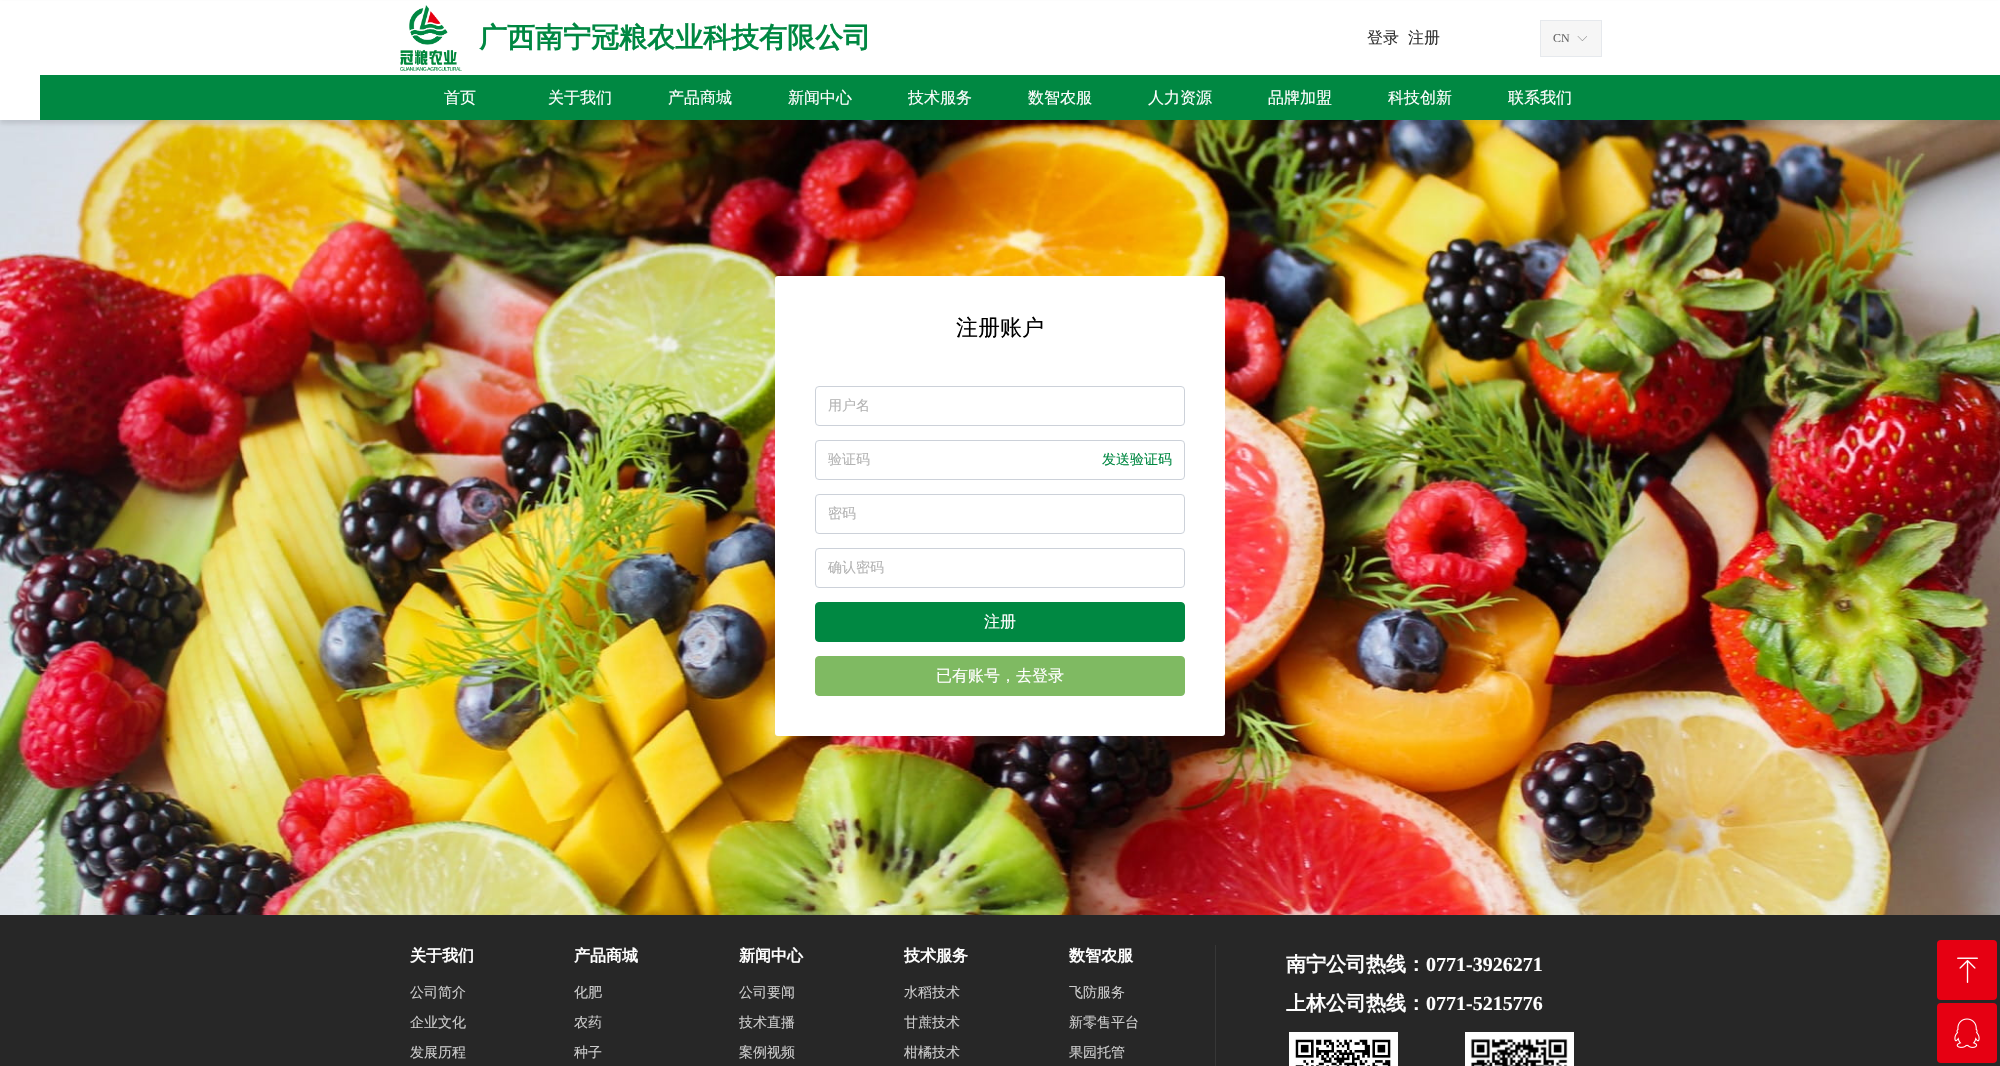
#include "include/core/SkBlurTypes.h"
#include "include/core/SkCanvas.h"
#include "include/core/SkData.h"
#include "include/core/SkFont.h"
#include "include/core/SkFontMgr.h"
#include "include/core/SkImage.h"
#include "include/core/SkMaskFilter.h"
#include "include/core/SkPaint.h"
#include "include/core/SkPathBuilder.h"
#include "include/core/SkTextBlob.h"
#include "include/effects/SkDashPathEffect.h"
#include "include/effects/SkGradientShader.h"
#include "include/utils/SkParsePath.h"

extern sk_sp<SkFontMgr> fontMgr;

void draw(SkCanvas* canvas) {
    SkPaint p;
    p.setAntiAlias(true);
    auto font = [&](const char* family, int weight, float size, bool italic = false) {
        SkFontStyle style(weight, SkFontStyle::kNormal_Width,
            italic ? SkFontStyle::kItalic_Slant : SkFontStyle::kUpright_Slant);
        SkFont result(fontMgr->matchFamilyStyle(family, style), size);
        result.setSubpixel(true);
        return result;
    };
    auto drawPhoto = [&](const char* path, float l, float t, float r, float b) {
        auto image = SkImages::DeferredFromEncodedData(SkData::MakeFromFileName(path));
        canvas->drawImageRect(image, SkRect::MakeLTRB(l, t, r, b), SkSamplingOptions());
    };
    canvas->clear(0xFFFFFFFF);
    drawPhoto("media/3.png", 0, 120, 2000, 915);
    p.setColor(0x1A000000);
    p.setMaskFilter(SkMaskFilter::MakeBlur(kNormal_SkBlurStyle, 2));
    canvas->drawRect(SkRect::MakeLTRB(0, 4, 2000, 124), p);
    p.setMaskFilter(nullptr);
    p.setColor(0xFFFFFFFF);
    canvas->drawRect(SkRect::MakeLTRB(0, 1, 2000, 120), p);
    drawPhoto("media/1.png", 400, 5, 462, 71);
    auto font1 = font("WenQuanYi Zen Hei", 700, 28);
    p.setColor(0xFF008842);
    canvas->drawString("广西南宁冠粮农业科技有限公司", 479, 47, font1, p);
    auto font2 = font("WenQuanYi Zen Hei", 500, 16);
    p.setColor(0xFF333333);
    canvas->drawString("登录", 1367, 43, font2, p);
    canvas->drawString("注册", 1408, 43, font2, p);
    p.setColor(0xFFF6F6F6);
    canvas->drawRect(SkRect::MakeLTRB(1540.5f, 20.5f, 1601.5f, 56.5f), p);
    p.setStyle(SkPaint::kStroke_Style);
    p.setStrokeWidth(1);
    p.setColor(0xFFE6E9ED);
    canvas->drawRect(SkRect::MakeLTRB(1540.5f, 20.5f, 1601.5f, 56.5f), p);
    auto font3 = font("Liberation Serif", 400, 12);
    p.setStyle(SkPaint::kFill_Style);
    p.setColor(0xFF666666);
    canvas->drawString("CN", 1553, 42, font3, p);
    drawPhoto("media/2.png", 1577, 36, 1587, 41);
    p.setColor(0xFF008842);
    canvas->drawRect(SkRect::MakeLTRB(40, 75, 2000, 120), p);
    p.setColor(0xFFFFFFFF);
    {
        const struct { const char* s; float x, y; } items[] = {
            {"首页", 444, 103},
            {"关于我们", 548, 103},
            {"产品商城", 668, 103},
            {"新闻中心", 788, 103},
            {"技术服务", 908, 103},
            {"数智农服", 1028, 103},
            {"人力资源", 1148, 103},
            {"品牌加盟", 1268, 103},
            {"科技创新", 1388, 103},
            {"联系我们", 1508, 103},
        };
        for (auto [s, x, y] : items) {
            canvas->drawString(s, x, y, font2, p);
        }
    }
    canvas->drawRoundRect(SkRect::MakeLTRB(775, 276, 1225, 736), 3, 3, p);
    auto font4 = font("WenQuanYi Zen Hei", 500, 22);
    p.setColor(0xFF000000);
    canvas->drawString("注册账户", 956, 335, font4, p);
    p.setStyle(SkPaint::kStroke_Style);
    p.setColor(0xFFCCD1D9);
    canvas->drawRoundRect(SkRect::MakeLTRB(815.5f, 386.5f, 1184.5f, 425.5f), 3.5f, 3.5f, p);
    auto font5 = font("WenQuanYi Zen Hei", 500, 14);
    p.setStyle(SkPaint::kFill_Style);
    p.setColor(0xFFB3B3B3);
    canvas->drawString("用户名", 828, 410, font5, p);
    p.setStyle(SkPaint::kStroke_Style);
    p.setColor(0xFFCCD1D9);
    canvas->drawRoundRect(SkRect::MakeLTRB(815.5f, 440.5f, 1184.5f, 479.5f), 3.5f, 3.5f, p);
    p.setStyle(SkPaint::kFill_Style);
    p.setColor(0xFFB3B3B3);
    canvas->drawString("验证码", 828, 464, font5, p);
    p.setColor(0xFF008842);
    canvas->drawString("发送验证码", 1102, 464, font5, p);
    p.setStyle(SkPaint::kStroke_Style);
    p.setColor(0xFFCCD1D9);
    canvas->drawRoundRect(SkRect::MakeLTRB(815.5f, 494.5f, 1184.5f, 533.5f), 3.5f, 3.5f, p);
    p.setStyle(SkPaint::kFill_Style);
    p.setColor(0xFFB3B3B3);
    canvas->drawString("密码", 828, 518, font5, p);
    p.setStyle(SkPaint::kStroke_Style);
    p.setColor(0xFFCCD1D9);
    canvas->drawRoundRect(SkRect::MakeLTRB(815.5f, 548.5f, 1184.5f, 587.5f), 3.5f, 3.5f, p);
    p.setStyle(SkPaint::kFill_Style);
    p.setColor(0xFFB3B3B3);
    canvas->drawString("确认密码", 828, 572, font5, p);
    p.setColor(0xFF008842);
    canvas->drawRoundRect(SkRect::MakeLTRB(815.5f, 602.5f, 1184.5f, 641.5f), 3.5f, 3.5f, p);
    p.setStyle(SkPaint::kStroke_Style);
    canvas->drawRoundRect(SkRect::MakeLTRB(815.5f, 602.5f, 1184.5f, 641.5f), 3.5f, 3.5f, p);
    p.setStyle(SkPaint::kFill_Style);
    p.setColor(0xFFFFFFFF);
    canvas->drawString("注册", 984, 627, font2, p);
    p.setColor(0xFF7FBA62);
    canvas->drawRoundRect(SkRect::MakeLTRB(815.5f, 656.5f, 1184.5f, 695.5f), 3.5f, 3.5f, p);
    p.setStyle(SkPaint::kStroke_Style);
    canvas->drawRoundRect(SkRect::MakeLTRB(815.5f, 656.5f, 1184.5f, 695.5f), 3.5f, 3.5f, p);
    p.setStyle(SkPaint::kFill_Style);
    p.setColor(0xFFFFFFFF);
    canvas->drawString("已有账号，去登录", 936, 681, font2, p);
    p.setColor(0xFF272727);
    canvas->drawRect(SkRect::MakeLTRB(0, 915, 2000, 1066), p);
    auto font6 = font("WenQuanYi Zen Hei", 700, 16);
    p.setColor(0xFFFFFFFF);
    {
        const struct { const char* s; float x, y; } items[] = {
            {"关于我们", 410, 961},
            {"产品商城", 574, 961},
            {"新闻中心", 739, 961},
            {"技术服务", 904, 961},
            {"数智农服", 1069, 961},
        };
        for (auto [s, x, y] : items) {
            canvas->drawString(s, x, y, font6, p);
        }
    }
    p.setColor(0xFF373737);
    canvas->drawRect(SkRect::MakeLTRB(1215, 945, 1216, 1066), p);
    auto font7 = font("WenQuanYi Zen Hei", 700, 20);
    p.setColor(0xFFFFFFFF);
    canvas->drawString("南宁公司热线：", 1286, 971, font7, p);
    auto font8 = font("Liberation Serif", 700, 20);
    canvas->drawString("0771-3926271", 1426, 971, font8, p);
    p.setColor(0xFFCCCCCC);
    {
        const struct { const char* s; float x, y; } items[] = {
            {"公司简介", 410, 997},
            {"企业文化", 410, 1027},
            {"发展历程", 410, 1057},
            {"化肥", 574, 997},
            {"农药", 574, 1027},
            {"种子", 574, 1057},
            {"公司要闻", 739, 997},
            {"技术直播", 739, 1027},
            {"案例视频", 739, 1057},
            {"水稻技术", 904, 997},
            {"甘蔗技术", 904, 1027},
            {"柑橘技术", 904, 1057},
            {"飞防服务", 1069, 997},
            {"新零售平台", 1069, 1027},
            {"果园托管", 1069, 1057},
        };
        for (auto [s, x, y] : items) {
            canvas->drawString(s, x, y, font5, p);
        }
    }
    p.setColor(0xFFFFFFFF);
    canvas->drawString("上林公司热线：", 1286, 1010, font7, p);
    canvas->drawString("0771-5215776", 1426, 1010, font8, p);
    drawPhoto("media/4.png", 1289, 1032, 1398, 1066);
    drawPhoto("media/5.png", 1465, 1032, 1574, 1066);
    p.setColor(0xFFE60012);
    canvas->drawRoundRect(SkRect::MakeLTRB(1937, 940, 1997, 1000), 4, 4, p);
    drawPhoto("media/6.png", 1957, 957, 1978, 983);
    canvas->drawRoundRect(SkRect::MakeLTRB(1937, 1003, 1997, 1063), 4, 4, p);
    drawPhoto("media/7.png", 1954, 1018, 1980, 1048);
}
